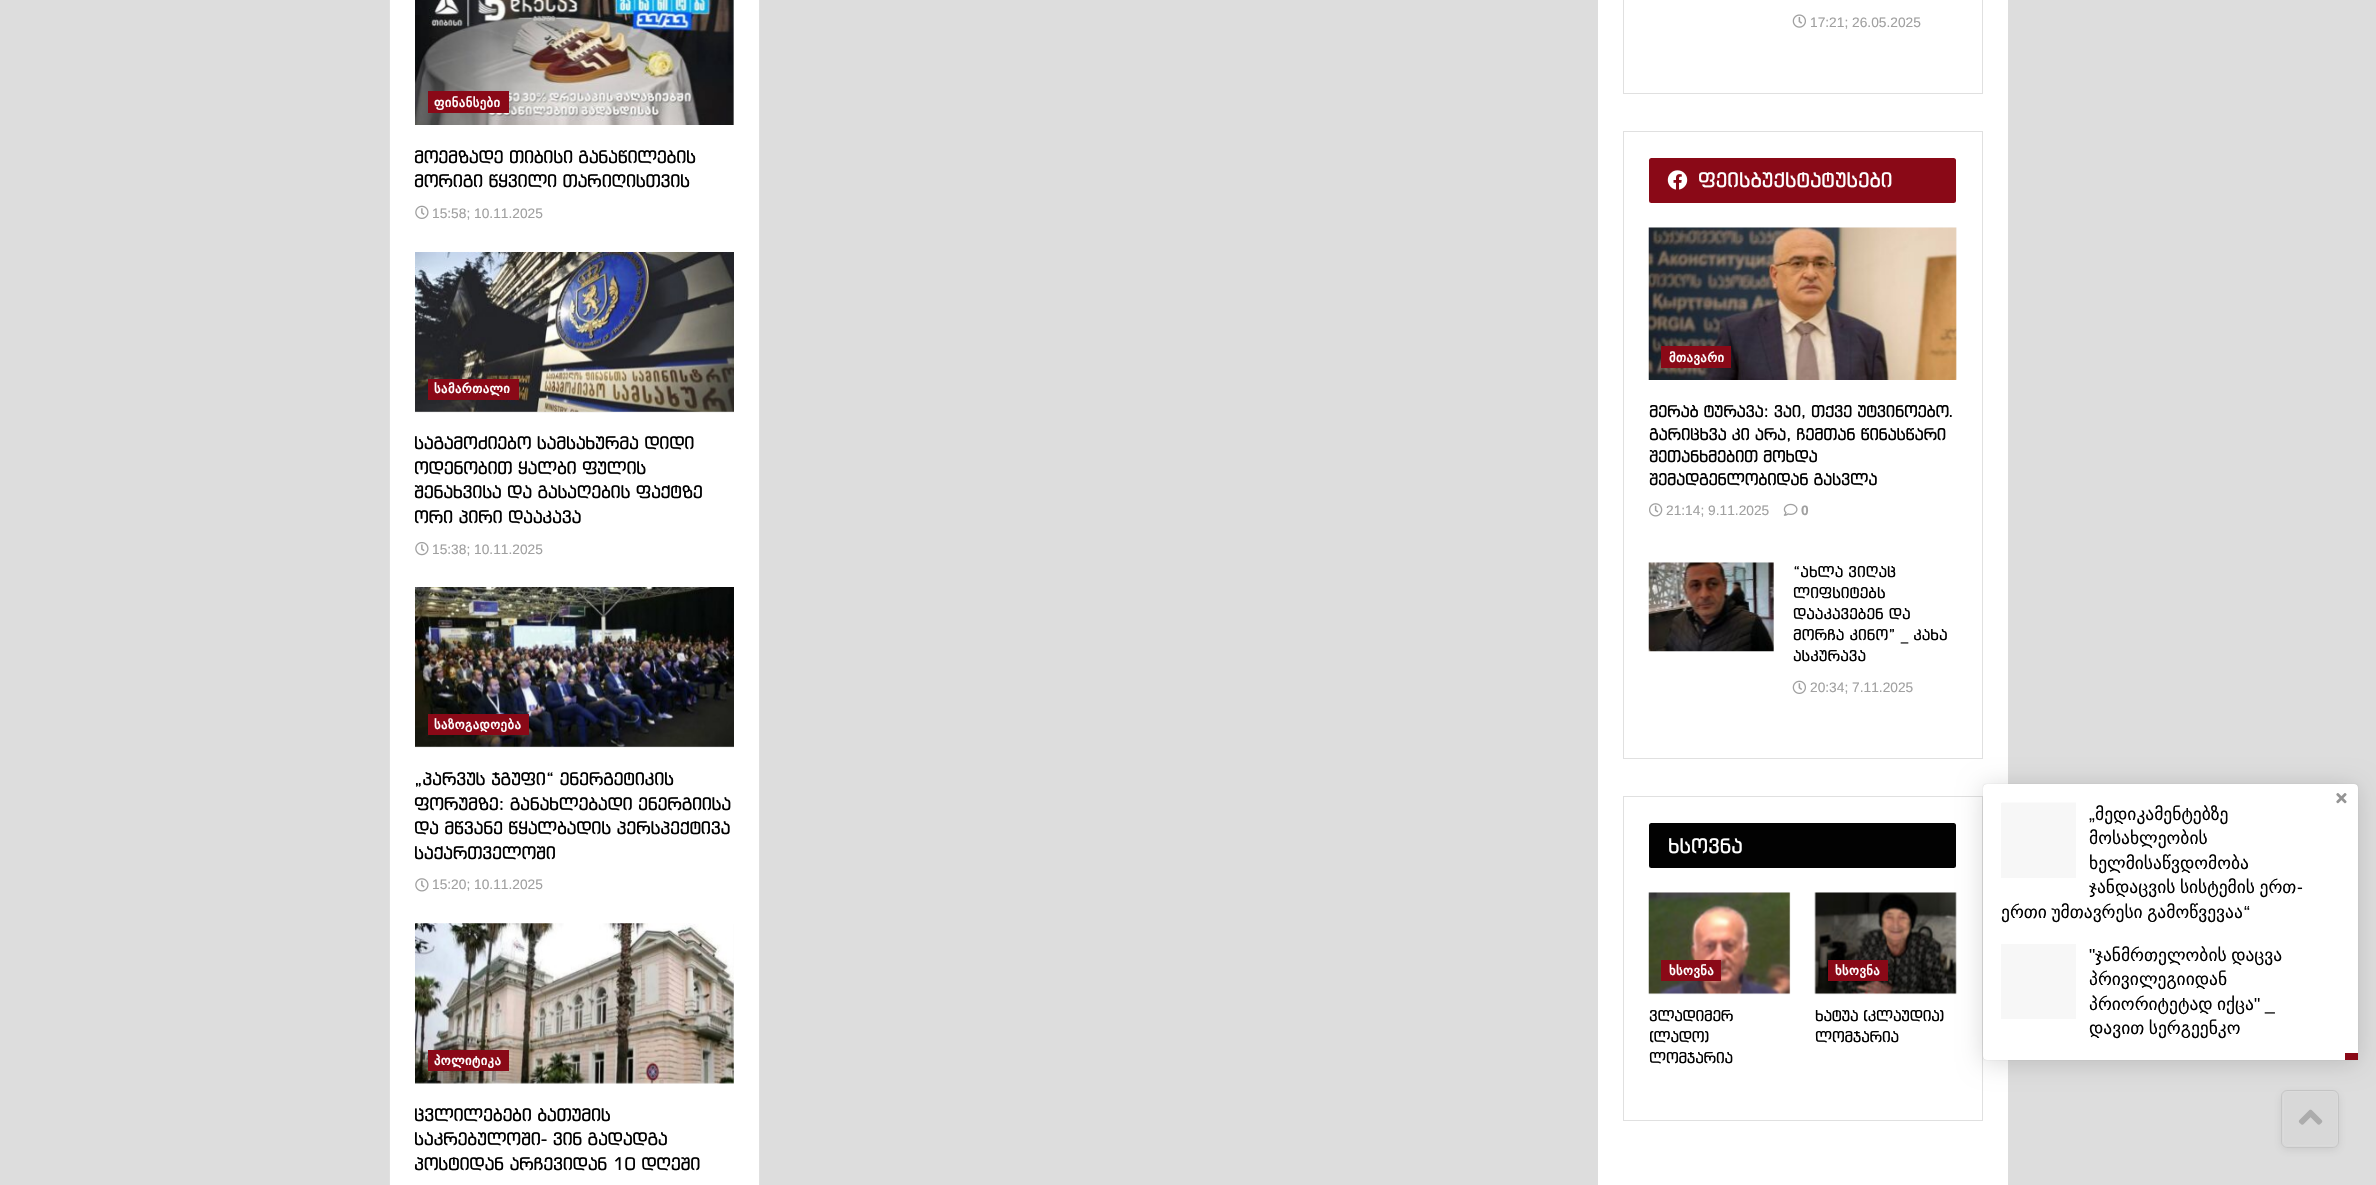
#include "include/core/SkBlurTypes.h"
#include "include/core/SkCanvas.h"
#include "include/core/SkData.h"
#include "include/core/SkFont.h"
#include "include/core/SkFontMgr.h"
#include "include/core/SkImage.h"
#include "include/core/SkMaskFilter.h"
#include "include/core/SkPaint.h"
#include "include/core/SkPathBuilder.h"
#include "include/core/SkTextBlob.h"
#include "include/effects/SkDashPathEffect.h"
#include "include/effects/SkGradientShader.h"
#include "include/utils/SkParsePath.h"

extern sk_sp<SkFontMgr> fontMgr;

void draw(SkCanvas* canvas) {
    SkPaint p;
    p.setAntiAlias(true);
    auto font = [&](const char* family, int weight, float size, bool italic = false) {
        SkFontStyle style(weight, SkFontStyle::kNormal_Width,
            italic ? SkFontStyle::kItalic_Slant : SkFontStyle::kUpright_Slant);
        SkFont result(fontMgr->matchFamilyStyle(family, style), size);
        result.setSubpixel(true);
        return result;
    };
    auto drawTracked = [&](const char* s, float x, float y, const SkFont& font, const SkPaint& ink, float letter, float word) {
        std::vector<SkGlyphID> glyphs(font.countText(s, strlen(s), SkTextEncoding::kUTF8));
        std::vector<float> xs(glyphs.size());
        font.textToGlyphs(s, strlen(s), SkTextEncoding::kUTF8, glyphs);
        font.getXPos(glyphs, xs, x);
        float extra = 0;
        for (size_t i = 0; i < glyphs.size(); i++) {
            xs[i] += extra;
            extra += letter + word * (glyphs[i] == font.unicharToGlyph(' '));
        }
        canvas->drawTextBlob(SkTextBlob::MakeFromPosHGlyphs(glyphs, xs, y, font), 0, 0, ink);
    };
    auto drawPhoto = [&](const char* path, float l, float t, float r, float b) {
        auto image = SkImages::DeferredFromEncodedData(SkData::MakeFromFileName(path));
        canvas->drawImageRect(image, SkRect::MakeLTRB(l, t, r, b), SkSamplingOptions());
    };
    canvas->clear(0xFFDDDDDD);
    p.setColor(0xFFFFFFFF);
    canvas->drawRect(SkRect::MakeLTRB(389.5f, -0.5f, 759.5f, 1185.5f), p);
    p.setStyle(SkPaint::kStroke_Style);
    p.setStrokeWidth(1);
    p.setColor(0xFFE0E0E0);
    canvas->drawRect(SkRect::MakeLTRB(389.5f, -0.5f, 759.5f, 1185.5f), p);
    p.setStyle(SkPaint::kFill_Style);
    p.setColor(0xFFF7F7F7);
    canvas->drawRect(SkRect::MakeLTRB(733, 0, 734, 125), p);
    drawPhoto("media/1.png", 415, 0, 734, 125);
    p.setColor(0xFF8A0917);
    canvas->drawRect(SkRect::MakeLTRB(428, 91, 509, 113), p);
    auto font1 = font("DejaVu Sans", 700, 12.5f);
    p.setColor(0xFFFFFFFF);
    drawTracked("ფინანსები", 434, 107, font1, p, 0.5f, 0);
    auto font2 = font("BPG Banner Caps", 400, 17.5f);
    p.setColor(0xFF000000);
    drawTracked("მოემზადე თიბისი განაწილების", 414, 163, font2, p, -0.35f, 0);
    drawTracked("მორიგი წყვილი თარიღისთვის", 414, 187, font2, p, -0.35f, 0);
    drawPhoto("media/2.png", 415, 205, 429, 219);
    auto font3 = font("Liberation Sans", 400, 13.75f);
    p.setColor(0xFFA0A0A0);
    canvas->drawString("15:58; 10.11.2025", 432, 218, font3, p);
    p.setColor(0xFFF7F7F7);
    canvas->drawRect(SkRect::MakeLTRB(415, 411, 734, 413), p);
    drawPhoto("media/3.png", 415, 252, 734, 412);
    p.setColor(0xFF8A0917);
    canvas->drawRect(SkRect::MakeLTRB(428, 379, 519, 400), p);
    p.setColor(0xFFFFFFFF);
    drawTracked("სამართალი", 434, 393, font1, p, 0.5f, 0);
    p.setColor(0xFF000000);
    {
        const struct { const char* s; float x, y; } items[] = {
            {"საგამოძიებო სამსახურმა დიდი", 414, 449},
            {"ოდენობით ყალბი ფულის", 414, 474},
            {"შენახვისა და გასაღების ფაქტზე", 414, 498},
            {"ორი პირი დააკავა", 414, 523},
        };
        for (auto [s, x, y] : items) {
            drawTracked(s, x, y, font2, p, -0.35f, 0);
        }
    }
    drawPhoto("media/4.png", 415, 542, 429, 556);
    p.setColor(0xFFA0A0A0);
    canvas->drawString("15:38; 10.11.2025", 432, 554, font3, p);
    p.setColor(0xFFF7F7F7);
    canvas->drawRect(SkRect::MakeLTRB(415, 746, 734, 748), p);
    drawPhoto("media/5.png", 415, 587, 734, 747);
    p.setColor(0xFF8A0917);
    canvas->drawRect(SkRect::MakeLTRB(428, 714, 529, 735), p);
    p.setColor(0xFFFFFFFF);
    drawTracked("საზოგადოება", 434, 729, font1, p, 0.5f, 0);
    p.setColor(0xFF000000);
    {
        const struct { const char* s; float x, y; } items[] = {
            {"„პარვუს ჯგუფი“ ენერგეტიკის", 414, 785},
            {"ფორუმზე: განახლებადი ენერგიისა", 414, 810},
            {"და მწვანე წყალბადის პერსპექტივა", 414, 834},
            {"საქართველოში", 414, 859},
        };
        for (auto [s, x, y] : items) {
            drawTracked(s, x, y, font2, p, -0.35f, 0);
        }
    }
    drawPhoto("media/6.png", 415, 878, 429, 892);
    p.setColor(0xFFA0A0A0);
    canvas->drawString("15:20; 10.11.2025", 432, 889, font3, p);
    p.setColor(0xFFF7F7F7);
    canvas->drawRect(SkRect::MakeLTRB(415, 924, 734, 1084), p);
    drawPhoto("media/7.png", 415, 923, 734, 1084);
    p.setColor(0xFF8A0917);
    canvas->drawRect(SkRect::MakeLTRB(428, 1050, 509, 1071), p);
    p.setColor(0xFFFFFFFF);
    drawTracked("პოლიტიკა", 434, 1065, font1, p, 0.5f, 0);
    p.setColor(0xFF000000);
    {
        const struct { const char* s; float x, y; } items[] = {
            {"ცვლილებები ბათუმის", 414, 1121},
            {"საკრებულოში- ვინ გადადგა", 414, 1145},
            {"პოსტიდან არჩევიდან 10 დღეში", 414, 1170},
        };
        for (auto [s, x, y] : items) {
            drawTracked(s, x, y, font2, p, -0.35f, 0);
        }
    }
    p.setColor(0xFFFFFFFF);
    canvas->drawRect(SkRect::MakeLTRB(1598, 0, 2008, 1185), p);
    p.setStyle(SkPaint::kStroke_Style);
    p.setColor(0xFFE0E0E0);
    canvas->drawRect(SkRect::MakeLTRB(1623.5f, -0.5f, 1982.5f, 93.5f), p);
    drawPhoto("media/8.png", 1792, 14, 1806, 28);
    p.setStyle(SkPaint::kFill_Style);
    p.setColor(0xFFA0A0A0);
    canvas->drawString("17:21; 26.05.2025", 1810, 27, font3, p);
    p.setStyle(SkPaint::kStroke_Style);
    p.setColor(0xFFE0E0E0);
    canvas->drawRect(SkRect::MakeLTRB(1623.5f, 131.5f, 1982.5f, 758.5f), p);
    p.setStyle(SkPaint::kFill_Style);
    p.setColor(0xFF8A0917);
    canvas->drawRoundRect(SkRect::MakeLTRB(1649, 158, 1956, 203), 2.5f, 2.5f, p);
    drawPhoto("media/9.png", 1667, 170, 1688, 190);
    auto font4 = font("BPG Banner Caps", 400, 20);
    p.setColor(0xFFFFFFFF);
    canvas->drawString("ფეისბუქსტატუსები", 1698, 187, font4, p);
    drawPhoto("media/11.png", 1649, 227, 1957, 379);
    drawPhoto("media/10.png", 1648, 227, 1957, 380);
    p.setColor(0xFF8A0917);
    canvas->drawRect(SkRect::MakeLTRB(1661, 346, 1731, 368), p);
    p.setColor(0xFFFFFFFF);
    drawTracked("მთავარი", 1669, 362, font1, p, 0.5f, 0);
    auto font5 = font("BPG Banner Caps", 400, 16.25f);
    p.setColor(0xFF000000);
    {
        const struct { const char* s; float x, y; } items[] = {
            {"მერაბ ტურავა: ვაი, თქვე უტვინოებო.", 1649, 417},
            {"გარიცხვა კი არა, ჩემთან წინასწარი", 1649, 440},
            {"შეთანხმებით მოხდა", 1649, 462},
            {"შემადგენლობიდან გასვლა", 1649, 485},
        };
        for (auto [s, x, y] : items) {
            drawTracked(s, x, y, font5, p, -0.35f, 0);
        }
    }
    drawPhoto("media/12.png", 1649, 503, 1663, 517);
    p.setColor(0xFFA0A0A0);
    canvas->drawString("21:14; 9.11.2025", 1666, 515, font3, p);
    drawPhoto("media/13.png", 1783, 503, 1798, 516);
    auto font6 = font("Liberation Sans", 700, 13.75f);
    canvas->drawString("0", 1801, 515, font6, p);
    p.setColor(0xFFF7F7F7);
    canvas->drawRect(SkRect::MakeLTRB(1773, 563, 1774, 651), p);
    p.setColor(0xFFFBFBFB);
    canvas->drawRect(SkRect::MakeLTRB(1649, 562, 1772, 563), p);
    drawPhoto("media/14.png", 1648, 562, 1774, 652);
    auto font7 = font("BPG Banner Caps", 400, 15);
    p.setColor(0xFF000000);
    {
        const struct { const char* s; float x, y; } items[] = {
            {"“ახლა ვიღაც", 1793, 577},
            {"ლიფსიტებს", 1793, 598},
            {"დააკავებენ და", 1793, 619},
            {"მორჩა კინო” _ კახა", 1793, 640},
            {"ასკურავა", 1793, 661},
        };
        for (auto [s, x, y] : items) {
            canvas->drawString(s, x, y, font7, p);
        }
    }
    drawPhoto("media/15.png", 1792, 680, 1806, 694);
    p.setColor(0xFFA0A0A0);
    canvas->drawString("20:34; 7.11.2025", 1810, 692, font3, p);
    p.setStyle(SkPaint::kStroke_Style);
    p.setColor(0xFFE0E0E0);
    canvas->drawRect(SkRect::MakeLTRB(1623.5f, 796.5f, 1982.5f, 1120.5f), p);
    p.setStyle(SkPaint::kFill_Style);
    p.setColor(0xFF020202);
    canvas->drawRoundRect(SkRect::MakeLTRB(1649, 823, 1956, 868), 2.5f, 2.5f, p);
    p.setColor(0xFFFFFFFF);
    canvas->drawString("ხსოვნა", 1668, 853, font4, p);
    p.setColor(0xFFF7F7F7);
    canvas->drawRect(SkRect::MakeLTRB(1649, 893, 1790, 994), p);
    p.setColor(0xFFFBFBFB);
    canvas->drawRect(SkRect::MakeLTRB(1649, 892, 1789, 893), p);
    drawPhoto("media/16.png", 1648, 892, 1791, 995);
    p.setColor(0xFF8A0917);
    canvas->drawRect(SkRect::MakeLTRB(1661, 960, 1721, 981), p);
    p.setColor(0xFFFFFFFF);
    drawTracked("ხსოვნა", 1669, 975, font1, p, 0.5f, 0);
    p.setColor(0xFF000000);
    {
        const struct { const char* s; float x, y; } items[] = {
            {"ვლადიმერ", 1649, 1021},
            {"(ლადო)", 1649, 1042},
            {"ლომჯარია", 1649, 1063},
        };
        for (auto [s, x, y] : items) {
            drawTracked(s, x, y, font7, p, -0.25f, 0);
        }
    }
    p.setColor(0xFFF7F7F7);
    canvas->drawRect(SkRect::MakeLTRB(1815, 893, 1956, 994), p);
    drawPhoto("media/18.png", 1816, 892, 1956, 893);
    drawPhoto("media/17.png", 1814, 892, 1957, 995);
    p.setColor(0xFF8A0917);
    canvas->drawRect(SkRect::MakeLTRB(1828, 960, 1888, 981), p);
    p.setColor(0xFFFFFFFF);
    drawTracked("ხსოვნა", 1835, 975, font1, p, 0.5f, 0);
    p.setColor(0xFF000000);
    drawTracked("ხატუა (კლაუდია)", 1815, 1021, font7, p, -0.25f, 0);
    drawTracked("ლომჯარია", 1815, 1042, font7, p, -0.25f, 0);
    p.setColor(0x26000000);
    p.setMaskFilter(SkMaskFilter::MakeBlur(kNormal_SkBlurStyle, 12.5f));
    canvas->drawRoundRect(SkRect::MakeLTRB(1983, 786, 2358, 1063), 4, 4, p);
    p.setMaskFilter(nullptr);
    p.setColor(0x33000000);
    p.setMaskFilter(SkMaskFilter::MakeBlur(kNormal_SkBlurStyle, 0.5f));
    canvas->drawRoundRect(SkRect::MakeLTRB(1983, 784, 2358, 1060), 4, 4, p);
    p.setMaskFilter(nullptr);
    p.setColor(0xFFFFFFFF);
    canvas->drawRoundRect(SkRect::MakeLTRB(1983, 784, 2358, 1060), 4, 4, p);
    drawPhoto("media/19.png", 2336, 793, 2347, 804);
    p.setColor(0xFFF7F7F7);
    canvas->drawRect(SkRect::MakeLTRB(2001, 803, 2076, 878), p);
    p.setColor(0xFFFBFBFB);
    canvas->drawRect(SkRect::MakeLTRB(2002, 802, 2076, 803), p);
    auto font8 = font("Liberation Sans", 400, 17.5f);
    p.setColor(0xFF000000);
    canvas->drawString("„", 2089, 820, font8, p);
    auto font9 = font("DejaVu Sans", 400, 17.5f);
    {
        const struct { const char* s; float x, y; } items[] = {
            {"მედიკამენტებზე", 2095, 820},
            {"მოსახლეობის", 2089, 844},
            {"ხელმისაწვდომობა", 2089, 869},
        };
        for (auto [s, x, y] : items) {
            canvas->drawString(s, x, y, font9, p);
        }
    }
    drawTracked("ჯანდაცვის სისტემის ერთ", 2089, 893, font9, p, 0, -1);
    canvas->drawString("-", 2297, 893, font8, p);
    drawTracked("ერთი უმთავრესი გამოწვევაა", 2001, 918, font9, p, 0, -1);
    canvas->drawString("“", 2244, 918, font8, p);
    p.setColor(0xFFF7F7F7);
    canvas->drawRect(SkRect::MakeLTRB(2001, 944, 2076, 1019), p);
    p.setColor(0xFF000000);
    canvas->drawString("\"", 2089, 961, font8, p);
    drawTracked("ჯანმრთელობის დაცვა", 2095, 961, font9, p, 0, -1);
    {
        const struct { const char* s; float x, y; } items[] = {
            {"პრივილეგიიდან", 2089, 985},
            {"პრიორიტეტად", 2089, 1010},
            {"იქცა", 2217, 1010},
        };
        for (auto [s, x, y] : items) {
            canvas->drawString(s, x, y, font9, p);
        }
    }
    canvas->drawString("\" _", 2254, 1010, font8, p);
    drawTracked("დავით სერგეენკო", 2089, 1034, font9, p, 0, -1);
    p.setColor(0xFF8A0917);
    canvas->drawRect(SkRect::MakeLTRB(2345, 1053, 2358, 1060), p);
    canvas->save();
    canvas->clipPath(SkPathBuilder(SkPathFillType::kEvenOdd).moveTo(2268, 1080).lineTo(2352, 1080).lineTo(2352, 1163).lineTo(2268, 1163).close().moveTo(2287, 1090).lineTo(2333, 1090).cubicTo(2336.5f, 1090, 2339, 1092.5f, 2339, 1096).lineTo(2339, 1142).cubicTo(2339, 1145.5f, 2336.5f, 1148, 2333, 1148).lineTo(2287, 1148).cubicTo(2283.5f, 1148, 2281, 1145.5f, 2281, 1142).lineTo(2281, 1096).cubicTo(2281, 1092.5f, 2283.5f, 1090, 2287, 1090).close().detach(), true);
    p.setColor(0x1A2C2C2C);
    p.setMaskFilter(SkMaskFilter::MakeBlur(kNormal_SkBlurStyle, 4));
    canvas->drawRoundRect(SkRect::MakeLTRB(2281, 1093, 2339, 1150), 6, 6, p);
    p.setMaskFilter(nullptr);
    canvas->restore();
    p.setColor(0x26BDBDBD);
    canvas->drawRoundRect(SkRect::MakeLTRB(2281, 1090, 2339, 1148), 6, 6, p);
    p.setStyle(SkPaint::kStroke_Style);
    p.setColor(0xFFDBDBDB);
    canvas->drawRoundRect(SkRect::MakeLTRB(2283.5f, 1091.5f, 2337.5f, 1145.5f), 4.5f, 4.5f, p);
    p.setColor(0x1C2C2C2C);
    canvas->drawRoundRect(SkRect::MakeLTRB(2281.5f, 1090.5f, 2338.5f, 1147.5f), 5.5f, 5.5f, p);
    drawPhoto("media/20.png", 2298, 1109, 2323, 1125);
}
